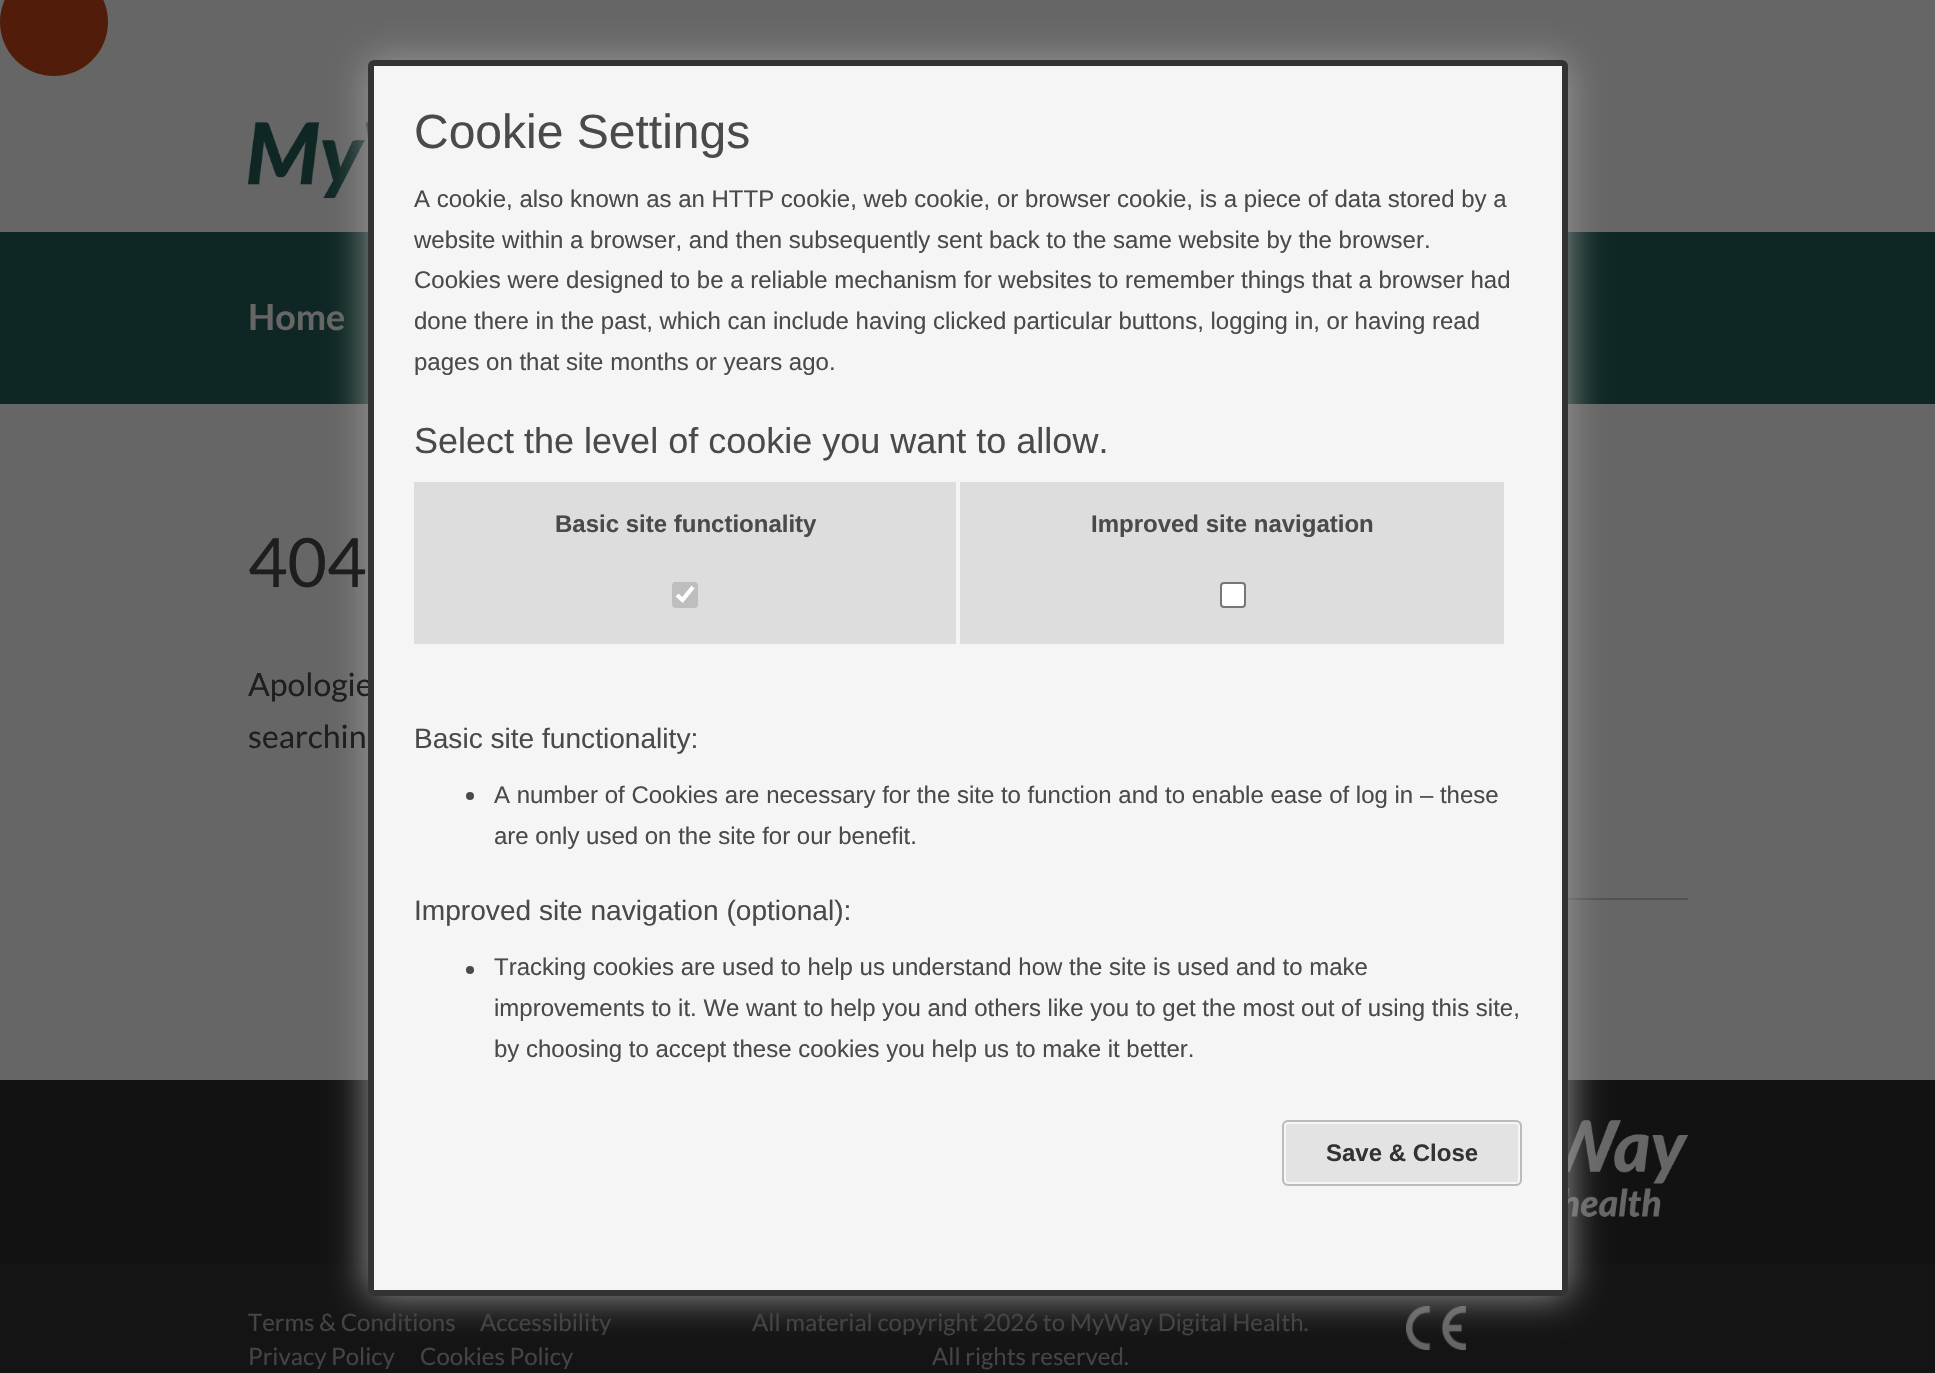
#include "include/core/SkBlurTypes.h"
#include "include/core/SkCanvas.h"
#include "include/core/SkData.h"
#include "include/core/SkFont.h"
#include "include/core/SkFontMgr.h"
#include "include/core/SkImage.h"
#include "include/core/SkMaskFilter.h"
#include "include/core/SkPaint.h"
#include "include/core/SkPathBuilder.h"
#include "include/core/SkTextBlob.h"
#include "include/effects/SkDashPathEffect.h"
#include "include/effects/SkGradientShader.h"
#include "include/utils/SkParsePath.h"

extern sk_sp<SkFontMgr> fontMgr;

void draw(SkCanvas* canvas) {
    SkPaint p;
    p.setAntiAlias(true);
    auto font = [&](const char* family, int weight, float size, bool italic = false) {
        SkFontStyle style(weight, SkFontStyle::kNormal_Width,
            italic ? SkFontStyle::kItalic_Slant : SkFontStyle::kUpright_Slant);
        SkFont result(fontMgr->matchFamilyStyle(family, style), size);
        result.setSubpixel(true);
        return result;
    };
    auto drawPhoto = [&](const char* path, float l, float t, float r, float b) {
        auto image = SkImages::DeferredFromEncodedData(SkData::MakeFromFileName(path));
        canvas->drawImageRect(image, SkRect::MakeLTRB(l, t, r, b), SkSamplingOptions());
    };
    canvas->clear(0xFF666666);
    p.setColor(0xFF521C0A);
    canvas->drawCircle(54, 22, 54, p);
    drawPhoto("media/1.png", 248, 122, 368, 198);
    {
        const struct { float l, t, r, b; SkColor color; } items[] = {
            {0, 232, 1935, 404, 0xFF0E2724},
            {1568, 898, 1688, 900, 0xFF525252},
            {0, 1080, 1935, 1264, 0xFF121212},
        };
        for (auto [l, t, r, b, color] : items) {
            p.setColor(color);
            canvas->drawRect(SkRect::MakeLTRB(l, t, r, b), p);
        }
    }
    drawPhoto("media/2.png", 1568, 1120, 1688, 1217);
    p.setColor(0xFF141414);
    canvas->drawRect(SkRect::MakeLTRB(0, 1264, 1935, 1373), p);
    drawPhoto("media/3.png", 1406, 1306, 1466, 1350);
    p.setColor(0xFF999999);
    p.setMaskFilter(SkMaskFilter::MakeBlur(kNormal_SkBlurStyle, 19));
    canvas->drawRoundRect(SkRect::MakeLTRB(368, 60, 1568, 1296), 6, 6, p);
    p.setMaskFilter(nullptr);
    auto font1 = font("Lato", 400, 32);
    p.setColor(0xFF1E1E1E);
    canvas->drawString("Apologie", 248, 696, font1, p);
    p.setColor(0xFFF5F5F5);
    canvas->drawRoundRect(SkRect::MakeLTRB(371, 63, 1565, 1293), 3, 3, p);
    p.setStyle(SkPaint::kStroke_Style);
    p.setStrokeWidth(6);
    p.setColor(0xFF333333);
    canvas->drawRoundRect(SkRect::MakeLTRB(371, 63, 1565, 1293), 3, 3, p);
    auto font2 = font("Liberation Sans", 400, 48);
    p.setStyle(SkPaint::kFill_Style);
    p.setColor(0xFF4A4A4A);
    canvas->drawString("Cookie Settings", 414, 148, font2, p);
    auto font3 = font("Liberation Sans", 400, 24);
    {
        const struct { const char* s; float x, y; } items[] = {
            {"A cookie, also known as an HTTP cookie, web cookie, or browser cookie, is a piece of data stored by a", 414, 207},
            {"website within a browser, and then subsequently sent back to the same website by the browser.", 414, 248},
            {"Cookies were designed to be a reliable mechanism for websites to remember things that a browser had", 414, 288},
            {"done there in the past, which can include having clicked particular buttons, logging in, or having read", 414, 329},
            {"pages on that site months or years ago.", 414, 370},
        };
        for (auto [s, x, y] : items) {
            canvas->drawString(s, x, y, font3, p);
        }
    }
    auto font4 = font("Liberation Sans", 400, 36);
    canvas->drawString("Select the level of cookie you want to allow.", 414, 453, font4, p);
    p.setColor(0xFFDDDDDD);
    canvas->drawRect(SkRect::MakeLTRB(414, 482, 956, 644), p);
    auto font5 = font("Liberation Sans", 700, 24);
    p.setColor(0xFF4A4A4A);
    canvas->drawString("Basic site functionality", 555, 532, font5, p);
    p.setColor(0xFFBEBEBE);
    canvas->drawRoundRect(SkRect::MakeLTRB(672, 582, 698, 608), 4, 4, p);
    p.setStyle(SkPaint::kStroke_Style);
    p.setStrokeWidth(4.2f);
    p.setColor(0xFFFFFFFF);
    canvas->drawPath(SkPathBuilder().moveTo(677, 595).lineTo(682.5f, 600).lineTo(693, 587).detach(), p);
    p.setStyle(SkPaint::kFill_Style);
    p.setColor(0xFFDDDDDD);
    canvas->drawRect(SkRect::MakeLTRB(960, 482, 1504, 644), p);
    p.setColor(0xFF4A4A4A);
    canvas->drawString("Improved site navigation", 1091, 532, font5, p);
    p.setColor(0xFFFFFFFF);
    canvas->drawRoundRect(SkRect::MakeLTRB(1221, 583, 1245, 607), 3, 3, p);
    p.setStyle(SkPaint::kStroke_Style);
    p.setStrokeWidth(2);
    p.setColor(0xFF767676);
    canvas->drawRoundRect(SkRect::MakeLTRB(1221, 583, 1245, 607), 3, 3, p);
    auto font6 = font("Liberation Sans", 400, 28.1f);
    p.setStyle(SkPaint::kFill_Style);
    p.setColor(0xFF4A4A4A);
    canvas->drawString("Basic site functionality:", 414, 748, font6, p);
    canvas->drawCircle(470, 796, 4, p);
    canvas->drawString("A number of Cookies are necessary for the site to function and to enable ease of log in – these", 494, 803, font3, p);
    canvas->drawString("are only used on the site for our benefit.", 494, 844, font3, p);
    canvas->drawString("Improved site navigation (optional):", 414, 920, font6, p);
    canvas->drawCircle(470, 970, 4, p);
    {
        const struct { const char* s; float x, y; } items[] = {
            {"Tracking cookies are used to help us understand how the site is used and to make", 494, 975},
            {"improvements to it. We want to help you and others like you to get the most out of using this site,", 494, 1016},
            {"by choosing to accept these cookies you help us to make it better.", 494, 1057},
        };
        for (auto [s, x, y] : items) {
            canvas->drawString(s, x, y, font3, p);
        }
    }
    p.setColor(0xFFE3E3E3);
    canvas->drawRoundRect(SkRect::MakeLTRB(1282, 1120, 1522, 1186), 6, 6, p);
    p.setStyle(SkPaint::kStroke_Style);
    p.setColor(0xFFF6F6F6);
    canvas->drawRoundRect(SkRect::MakeLTRB(1285, 1123, 1519, 1183), 3, 3, p);
    p.setColor(0xFFBBBBBB);
    canvas->drawRoundRect(SkRect::MakeLTRB(1283, 1121, 1521, 1185), 5, 5, p);
    p.setStyle(SkPaint::kFill_Style);
    p.setColor(0xFF333333);
    canvas->drawString("Save & Close", 1326, 1161, font5, p);
    auto font7 = font("Lato", 700, 36);
    p.setColor(0xFF666666);
    canvas->drawString("Home", 248, 330, font7, p);
    auto font8 = font("Lato", 400, 68);
    p.setColor(0xFF1E1E1E);
    canvas->drawString("404", 248, 587, font8, p);
    canvas->drawString("searchin", 248, 748, font1, p);
    auto font9 = font("Lato", 400, 24);
    p.setColor(0xFF444444);
    {
        const struct { const char* s; float x, y; } items[] = {
            {"Terms & Conditions", 248, 1331},
            {"Accessibility", 480, 1331},
            {"Privacy Policy", 248, 1365},
            {"Cookies Policy", 420, 1365},
            {"All material copyright 2026 to MyWay Digital Health.", 752, 1331},
            {"All rights reserved.", 932, 1365},
        };
        for (auto [s, x, y] : items) {
            canvas->drawString(s, x, y, font9, p);
        }
    }
}
